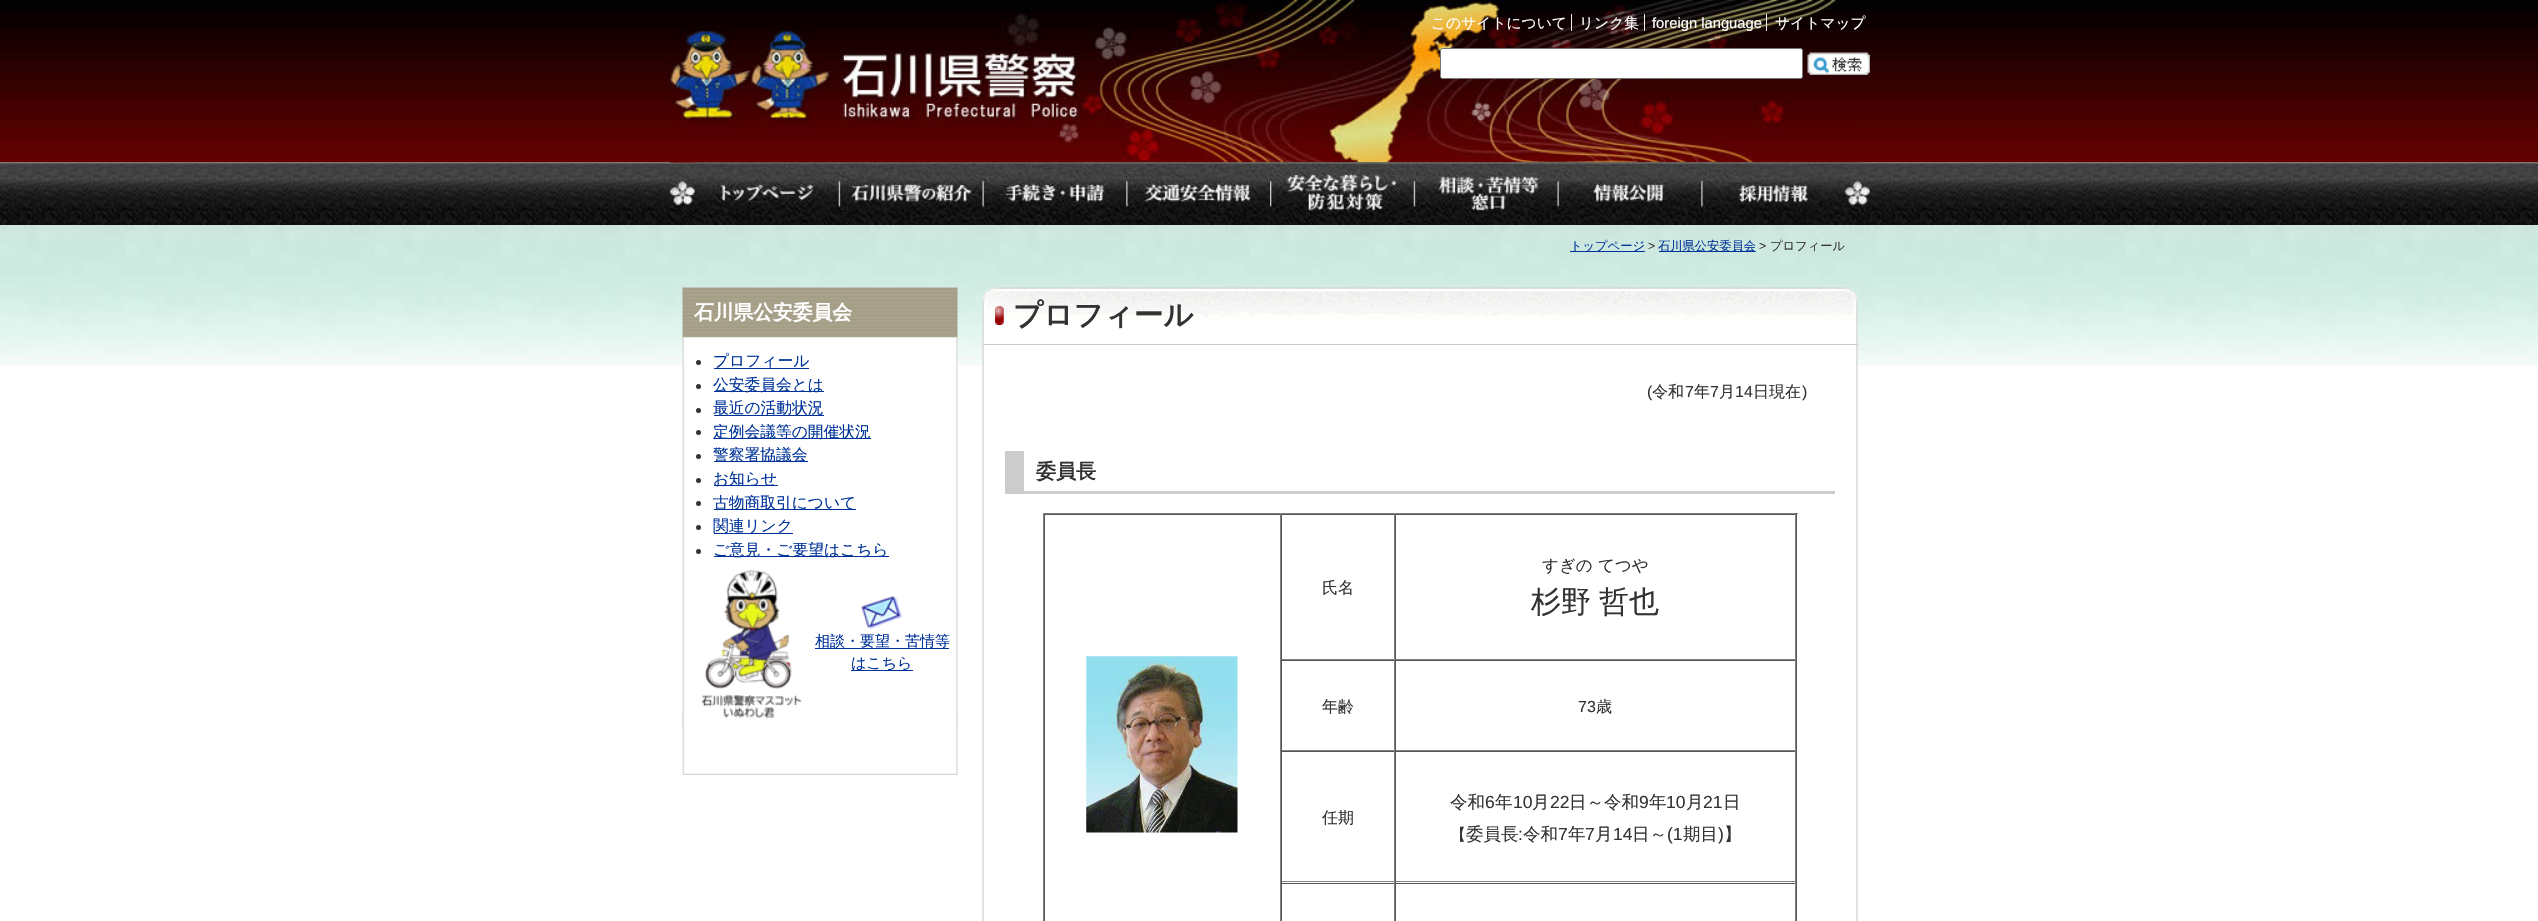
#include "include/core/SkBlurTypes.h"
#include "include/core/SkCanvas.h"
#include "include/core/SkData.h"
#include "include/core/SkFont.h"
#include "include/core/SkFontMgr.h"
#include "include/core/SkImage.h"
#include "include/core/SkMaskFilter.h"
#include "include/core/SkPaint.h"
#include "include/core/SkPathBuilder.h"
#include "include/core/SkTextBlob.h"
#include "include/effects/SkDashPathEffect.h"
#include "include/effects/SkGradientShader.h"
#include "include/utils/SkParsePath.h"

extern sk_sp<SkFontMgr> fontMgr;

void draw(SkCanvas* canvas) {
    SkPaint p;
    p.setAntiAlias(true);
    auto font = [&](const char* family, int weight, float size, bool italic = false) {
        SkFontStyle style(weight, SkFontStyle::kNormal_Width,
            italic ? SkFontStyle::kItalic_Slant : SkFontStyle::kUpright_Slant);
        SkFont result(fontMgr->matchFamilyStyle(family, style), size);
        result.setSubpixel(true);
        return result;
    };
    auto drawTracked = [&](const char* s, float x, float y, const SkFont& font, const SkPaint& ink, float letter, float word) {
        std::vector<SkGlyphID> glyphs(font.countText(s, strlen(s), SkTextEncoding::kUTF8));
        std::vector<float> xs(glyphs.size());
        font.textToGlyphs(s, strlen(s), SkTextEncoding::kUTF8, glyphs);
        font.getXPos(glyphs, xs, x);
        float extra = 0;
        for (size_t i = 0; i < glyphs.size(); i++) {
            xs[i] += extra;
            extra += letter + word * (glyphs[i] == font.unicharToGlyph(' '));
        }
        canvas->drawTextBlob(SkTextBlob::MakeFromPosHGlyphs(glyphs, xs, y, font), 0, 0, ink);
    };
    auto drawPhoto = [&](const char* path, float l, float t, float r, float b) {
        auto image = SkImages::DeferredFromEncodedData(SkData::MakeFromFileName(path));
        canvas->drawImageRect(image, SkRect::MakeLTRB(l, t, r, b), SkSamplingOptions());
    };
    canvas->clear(0xFFFFFFFF);
    drawPhoto("media/1.png", 0, 225, 2538, 366);
    drawPhoto("media/2.png", 0, 0, 2538, 163);
    drawPhoto("media/3.png", 1082, 0, 1858, 163);
    drawPhoto("media/6.png", 0, 162, 2538, 225);
    drawPhoto("media/7.png", 670, 162, 1870, 225);
    drawPhoto("media/4.png", 670, 10, 1083, 163);
    auto font1 = font("WenQuanYi Zen Hei", 500, 14.75f);
    p.setColor(0xFFFFFFFF);
    canvas->drawString("このサイトについて", 1431, 28, font1, p);
    p.setColor(0xFFEFEFEF);
    canvas->drawRect(SkRect::MakeLTRB(1571, 14, 1572, 31), p);
    p.setColor(0xFFFFFFFF);
    canvas->drawString("リンク集", 1579, 28, font1, p);
    p.setColor(0xFFEFEFEF);
    canvas->drawRect(SkRect::MakeLTRB(1644, 14, 1645, 31), p);
    auto font2 = font("Liberation Sans", 400, 14.75f);
    p.setColor(0xFFFFFFFF);
    canvas->drawString("foreign language", 1652, 28, font2, p);
    p.setColor(0xFFEFEFEF);
    canvas->drawRect(SkRect::MakeLTRB(1766, 14, 1767, 31), p);
    p.setColor(0xFFFFFFFF);
    canvas->drawString("サイトマップ", 1775, 28, font1, p);
    canvas->drawRoundRect(SkRect::MakeLTRB(1440.5f, 48.5f, 1802.5f, 78.5f), 2, 2, p);
    p.setStyle(SkPaint::kStroke_Style);
    p.setStrokeWidth(1);
    p.setColor(0xFF767676);
    canvas->drawRoundRect(SkRect::MakeLTRB(1440.5f, 48.5f, 1802.5f, 78.5f), 2, 2, p);
    drawPhoto("media/5.png", 1807, 52, 1870, 75);
    drawPhoto("media/8.png", 695, 162, 839, 225);
    drawPhoto("media/9.png", 838, 162, 983, 225);
    drawPhoto("media/10.png", 982, 162, 1126, 225);
    drawPhoto("media/11.png", 1126, 162, 1270, 225);
    drawPhoto("media/12.png", 1270, 162, 1414, 225);
    drawPhoto("media/13.png", 1413, 162, 1558, 225);
    drawPhoto("media/14.png", 1557, 162, 1701, 225);
    drawPhoto("media/15.png", 1701, 162, 1845, 225);
    p.setStyle(SkPaint::kFill_Style);
    p.setColor(0xFF003399);
    canvas->drawRect(SkRect::MakeLTRB(1570, 251, 1645, 252), p);
    auto font3 = font("WenQuanYi Zen Hei", 500, 12.25f);
    canvas->drawString("トップページ", 1570, 250, font3, p);
    auto font4 = font("Liberation Sans", 400, 12.25f);
    p.setColor(0xFF333333);
    canvas->drawString(">", 1648, 250, font4, p);
    p.setColor(0xFF003399);
    canvas->drawRect(SkRect::MakeLTRB(1659, 251, 1756, 252), p);
    canvas->drawString("石川県公安委員会", 1658, 250, font3, p);
    p.setColor(0xFF333333);
    canvas->drawString(">", 1759, 250, font4, p);
    canvas->drawString("プロフィール", 1770, 250, font3, p);
    drawPhoto("media/16.png", 682, 712, 958, 775);
    drawPhoto("media/17.png", 682, 287, 958, 338);
    auto font5 = font("WenQuanYi Zen Hei", 700, 19.75f);
    p.setColor(0xFFFFFFFF);
    canvas->drawString("石川県公安委員会", 694, 319, font5, p);
    drawPhoto("media/18.png", 682, 337, 958, 725);
    p.setColor(0xFF333333);
    canvas->drawCircle(698.5f, 362.5f, 2.5f, p);
    auto font6 = font("WenQuanYi Zen Hei", 500, 15.75f);
    p.setColor(0xFF003399);
    canvas->drawString("プロフィール", 713, 366, font6, p);
    canvas->drawRect(SkRect::MakeLTRB(714, 368, 809, 369), p);
    p.setColor(0xFF333333);
    canvas->drawCircle(698.5f, 386.5f, 2.5f, p);
    p.setColor(0xFF003399);
    canvas->drawRect(SkRect::MakeLTRB(714, 391, 824, 392), p);
    canvas->drawString("公安委員会とは", 713, 390, font6, p);
    p.setColor(0xFF333333);
    canvas->drawCircle(698.5f, 410.5f, 2.5f, p);
    p.setColor(0xFF003399);
    canvas->drawRect(SkRect::MakeLTRB(714, 415, 824, 416), p);
    canvas->drawString("最近の活動状況", 713, 413, font6, p);
    p.setColor(0xFF333333);
    canvas->drawCircle(698.5f, 432.5f, 2.5f, p);
    p.setColor(0xFF003399);
    canvas->drawRect(SkRect::MakeLTRB(714, 438, 871, 439), p);
    canvas->drawString("定例会議等の開催状況", 713, 437, font6, p);
    p.setColor(0xFF333333);
    canvas->drawCircle(698.5f, 456.5f, 2.5f, p);
    p.setColor(0xFF003399);
    canvas->drawRect(SkRect::MakeLTRB(714, 461, 808, 462), p);
    canvas->drawString("警察署協議会", 713, 460, font6, p);
    p.setColor(0xFF333333);
    canvas->drawCircle(698.5f, 480.5f, 2.5f, p);
    p.setColor(0xFF003399);
    canvas->drawRect(SkRect::MakeLTRB(714, 485, 778, 486), p);
    canvas->drawString("お知らせ", 713, 484, font6, p);
    p.setColor(0xFF333333);
    canvas->drawCircle(698.5f, 503.5f, 2.5f, p);
    p.setColor(0xFF003399);
    canvas->drawRect(SkRect::MakeLTRB(714, 509, 856, 510), p);
    canvas->drawString("古物商取引について", 713, 508, font6, p);
    p.setColor(0xFF333333);
    canvas->drawCircle(698.5f, 527.5f, 2.5f, p);
    p.setColor(0xFF003399);
    canvas->drawRect(SkRect::MakeLTRB(714, 533, 793, 534), p);
    canvas->drawString("関連リンク", 713, 531, font6, p);
    p.setColor(0xFF333333);
    canvas->drawCircle(698.5f, 551.5f, 2.5f, p);
    p.setColor(0xFF003399);
    canvas->drawRect(SkRect::MakeLTRB(714, 556, 889, 557), p);
    canvas->drawString("ご意見・ご要望はこちら", 713, 555, font6, p);
    drawPhoto("media/19.png", 701, 570, 802, 719);
    drawPhoto("media/20.png", 861, 596, 903, 629);
    canvas->drawRect(SkRect::MakeLTRB(815, 648, 949, 649), p);
    auto font7 = font("WenQuanYi Zen Hei", 500, 15);
    canvas->drawString("相談・要望・苦情等", 815, 646, font7, p);
    canvas->drawRect(SkRect::MakeLTRB(851, 670, 913, 671), p);
    canvas->drawString("はこちら", 851, 668, font7, p);
    drawPhoto("media/21.png", 982, 287, 1858, 345);
    p.setColor(0xFFCCCCCC);
    canvas->drawRect(SkRect::MakeLTRB(983, 344, 1858, 345), p);
    drawPhoto("media/22.png", 995, 306, 1004, 325);
    auto font8 = font("WenQuanYi Zen Hei", 700, 29.5f);
    p.setColor(0xFF333333);
    canvas->drawString("プロフィール", 1013, 325, font8, p);
    drawPhoto("media/23.png", 982, 345, 1858, 921);
    auto font9 = font("Liberation Sans", 400, 16);
    canvas->drawString("(", 1647, 397, font9, p);
    auto font10 = font("WenQuanYi Zen Hei", 500, 16);
    canvas->drawString("令和", 1652, 397, font10, p);
    canvas->drawString("7", 1685, 397, font9, p);
    canvas->drawString("年", 1694, 397, font10, p);
    canvas->drawString("7", 1710, 397, font9, p);
    canvas->drawString("月", 1719, 397, font10, p);
    canvas->drawString("14", 1735, 397, font9, p);
    canvas->drawString("日現在", 1753, 397, font10, p);
    canvas->drawString(")", 1802, 397, font9, p);
    p.setColor(0xFFCCCCCC);
    canvas->drawRect(SkRect::MakeLTRB(1024, 491, 1835, 494), p);
    canvas->drawRect(SkRect::MakeLTRB(1005, 451, 1024, 494), p);
    auto font11 = font("WenQuanYi Zen Hei", 700, 20);
    p.setColor(0xFF333333);
    canvas->drawString("委員長", 1036, 478, font11, p);
    {
        const struct { float l, t, r, b; SkColor color; } items[] = {
            {1043, 513, 1798, 514, 0xFF808080},
            {1796, 513, 1797, 921, 0xFF555555},
            {1043, 513, 1044, 921, 0xFF808080},
            {1044, 514, 1796, 515, 0xFF555555},
            {1280, 514, 1281, 921, 0xFF808080},
            {1044, 514, 1045, 921, 0xFF555555},
        };
        for (auto [l, t, r, b, color] : items) {
            p.setColor(color);
            canvas->drawRect(SkRect::MakeLTRB(l, t, r, b), p);
        }
    }
    drawPhoto("media/24.png", 1086, 656, 1238, 833);
    {
        const struct { float l, t, r, b; SkColor color; } items[] = {
            {1394, 514, 1395, 660, 0xFF808080},
            {1281, 659, 1395, 660, 0xFF808080},
            {1281, 514, 1282, 660, 0xFF555555},
        };
        for (auto [l, t, r, b, color] : items) {
            p.setColor(color);
            canvas->drawRect(SkRect::MakeLTRB(l, t, r, b), p);
        }
    }
    p.setColor(0xFF333333);
    canvas->drawString("氏名", 1322, 593, font10, p);
    {
        const struct { float l, t, r, b; SkColor color; } items[] = {
            {1795, 514, 1796, 660, 0xFF808080},
            {1395, 659, 1796, 660, 0xFF808080},
            {1395, 514, 1396, 660, 0xFF555555},
        };
        for (auto [l, t, r, b, color] : items) {
            p.setColor(color);
            canvas->drawRect(SkRect::MakeLTRB(l, t, r, b), p);
        }
    }
    auto font12 = font("WenQuanYi Zen Hei", 500, 16.5f);
    p.setColor(0xFF333333);
    canvas->drawString("すぎの", 1542, 571, font12, p);
    canvas->drawString("てつや", 1598, 571, font12, p);
    auto font13 = font("WenQuanYi Zen Hei", 500, 30);
    drawTracked("杉野 哲也", 1531, 612, font13, p, 0, -1);
    {
        const struct { float l, t, r, b; SkColor color; } items[] = {
            {1281, 660, 1796, 661, 0xFF555555},
            {1394, 660, 1395, 751, 0xFF808080},
            {1281, 750, 1395, 751, 0xFF808080},
            {1281, 660, 1282, 751, 0xFF555555},
        };
        for (auto [l, t, r, b, color] : items) {
            p.setColor(color);
            canvas->drawRect(SkRect::MakeLTRB(l, t, r, b), p);
        }
    }
    p.setColor(0xFF333333);
    canvas->drawString("年齢", 1322, 712, font10, p);
    {
        const struct { float l, t, r, b; SkColor color; } items[] = {
            {1795, 660, 1796, 751, 0xFF808080},
            {1395, 750, 1796, 751, 0xFF808080},
            {1395, 660, 1396, 751, 0xFF555555},
        };
        for (auto [l, t, r, b, color] : items) {
            p.setColor(color);
            canvas->drawRect(SkRect::MakeLTRB(l, t, r, b), p);
        }
    }
    p.setColor(0xFF333333);
    canvas->drawString("73", 1578, 712, font9, p);
    canvas->drawString("歳", 1596, 712, font10, p);
    {
        const struct { float l, t, r, b; SkColor color; } items[] = {
            {1281, 751, 1796, 752, 0xFF555555},
            {1394, 751, 1395, 883, 0xFF808080},
            {1281, 881, 1395, 882, 0xFF808080},
            {1281, 751, 1282, 883, 0xFF555555},
        };
        for (auto [l, t, r, b, color] : items) {
            p.setColor(color);
            canvas->drawRect(SkRect::MakeLTRB(l, t, r, b), p);
        }
    }
    p.setColor(0xFF333333);
    canvas->drawString("任期", 1322, 823, font10, p);
    {
        const struct { float l, t, r, b; SkColor color; } items[] = {
            {1795, 751, 1796, 883, 0xFF808080},
            {1395, 881, 1796, 882, 0xFF808080},
            {1395, 751, 1396, 883, 0xFF555555},
        };
        for (auto [l, t, r, b, color] : items) {
            p.setColor(color);
            canvas->drawRect(SkRect::MakeLTRB(l, t, r, b), p);
        }
    }
    auto font14 = font("WenQuanYi Zen Hei", 500, 17.5f);
    p.setColor(0xFF333333);
    canvas->drawString("令和", 1450, 808, font14, p);
    auto font15 = font("Liberation Sans", 400, 17.5f);
    canvas->drawString("6", 1485, 808, font15, p);
    canvas->drawString("年", 1495, 808, font14, p);
    canvas->drawString("10", 1513, 808, font15, p);
    canvas->drawString("月", 1532, 808, font14, p);
    canvas->drawString("22", 1550, 808, font15, p);
    canvas->drawString("日～令和", 1569, 808, font14, p);
    canvas->drawString("9", 1639, 808, font15, p);
    canvas->drawString("年", 1649, 808, font14, p);
    canvas->drawString("10", 1666, 808, font15, p);
    canvas->drawString("月", 1686, 808, font14, p);
    canvas->drawString("21", 1703, 808, font15, p);
    canvas->drawString("日", 1723, 808, font14, p);
    canvas->drawString("【", 1450, 840, font10, p);
    canvas->drawString("委員長", 1466, 840, font14, p);
    canvas->drawString(":", 1518, 840, font15, p);
    canvas->drawString("令和", 1523, 840, font14, p);
    canvas->drawString("7", 1558, 840, font15, p);
    canvas->drawString("年", 1568, 840, font14, p);
    canvas->drawString("7", 1585, 840, font15, p);
    canvas->drawString("月", 1595, 840, font14, p);
    canvas->drawString("14", 1613, 840, font15, p);
    canvas->drawString("日～", 1632, 840, font14, p);
    canvas->drawString("(1", 1667, 840, font15, p);
    canvas->drawString("期目", 1683, 840, font14, p);
    canvas->drawString(")", 1718, 840, font15, p);
    canvas->drawString("】", 1724, 840, font14, p);
    {
        const struct { float l, t, r, b; SkColor color; } items[] = {
            {1281, 883, 1796, 884, 0xFF555555},
            {1394, 883, 1395, 921, 0xFF808080},
            {1281, 883, 1282, 921, 0xFF555555},
            {1795, 883, 1796, 921, 0xFF808080},
            {1395, 883, 1396, 921, 0xFF555555},
        };
        for (auto [l, t, r, b, color] : items) {
            p.setColor(color);
            canvas->drawRect(SkRect::MakeLTRB(l, t, r, b), p);
        }
    }
}
